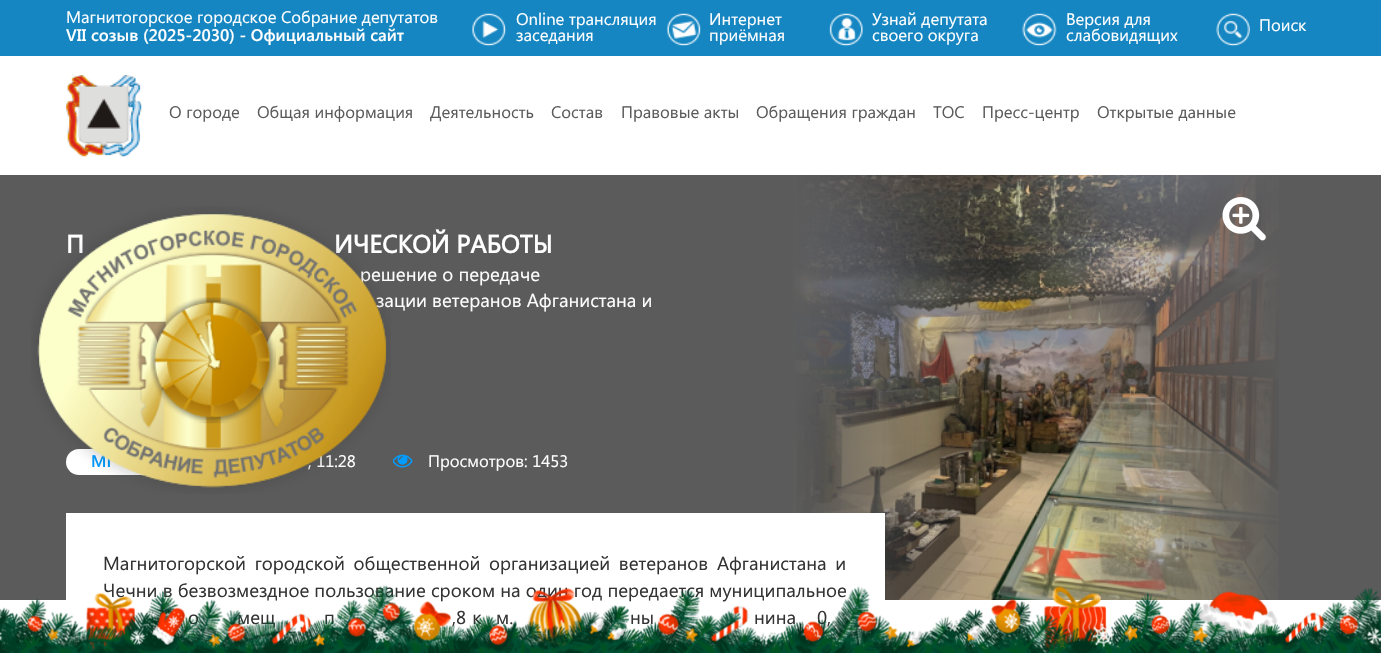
#include "include/core/SkBlurTypes.h"
#include "include/core/SkCanvas.h"
#include "include/core/SkData.h"
#include "include/core/SkFont.h"
#include "include/core/SkFontMgr.h"
#include "include/core/SkImage.h"
#include "include/core/SkMaskFilter.h"
#include "include/core/SkPaint.h"
#include "include/core/SkPathBuilder.h"
#include "include/core/SkTextBlob.h"
#include "include/effects/SkDashPathEffect.h"
#include "include/effects/SkGradientShader.h"
#include "include/utils/SkParsePath.h"

extern sk_sp<SkFontMgr> fontMgr;

void draw(SkCanvas* canvas) {
    SkPaint p;
    p.setAntiAlias(true);
    auto font = [&](const char* family, int weight, float size, bool italic = false) {
        SkFontStyle style(weight, SkFontStyle::kNormal_Width,
            italic ? SkFontStyle::kItalic_Slant : SkFontStyle::kUpright_Slant);
        SkFont result(fontMgr->matchFamilyStyle(family, style), size);
        result.setSubpixel(true);
        return result;
    };
    auto drawTracked = [&](const char* s, float x, float y, const SkFont& font, const SkPaint& ink, float letter, float word) {
        std::vector<SkGlyphID> glyphs(font.countText(s, strlen(s), SkTextEncoding::kUTF8));
        std::vector<float> xs(glyphs.size());
        font.textToGlyphs(s, strlen(s), SkTextEncoding::kUTF8, glyphs);
        font.getXPos(glyphs, xs, x);
        float extra = 0;
        for (size_t i = 0; i < glyphs.size(); i++) {
            xs[i] += extra;
            extra += letter + word * (glyphs[i] == font.unicharToGlyph(' '));
        }
        canvas->drawTextBlob(SkTextBlob::MakeFromPosHGlyphs(glyphs, xs, y, font), 0, 0, ink);
    };
    auto drawPhoto = [&](const char* path, float l, float t, float r, float b) {
        auto image = SkImages::DeferredFromEncodedData(SkData::MakeFromFileName(path));
        canvas->drawImageRect(image, SkRect::MakeLTRB(l, t, r, b), SkSamplingOptions());
    };
    canvas->clear(0xFFFFFFFF);
    p.setColor(0xFF1586C2);
    canvas->drawRect(SkRect::MakeLTRB(0, 0, 1381, 56), p);
    auto font1 = font("Segoe UI", 400, 16.7f);
    p.setColor(0xFFFFFFFF);
    canvas->drawString("Магнитогорское городское Cобрание депутатов", 66, 23, font1, p);
    auto font2 = font("Segoe UI", 600, 16.7f);
    canvas->drawString("VII созыв (2025-2030) - Официальный сайт", 66, 41, font2, p);
    drawPhoto("media/1.png", 472, 13, 507, 47);
    canvas->drawString("Online трансляция", 516, 25, font1, p);
    canvas->drawString("заседания", 516, 41, font1, p);
    drawPhoto("media/2.png", 666, 13, 701, 47);
    canvas->drawString("Интернет", 709, 25, font1, p);
    canvas->drawString("приёмная", 709, 41, font1, p);
    drawPhoto("media/3.png", 829, 13, 863, 47);
    canvas->drawString("Узнай депутата", 872, 25, font1, p);
    canvas->drawString("своего округа", 872, 41, font1, p);
    drawPhoto("media/4.png", 1022, 13, 1057, 47);
    canvas->drawString("Версия для", 1066, 25, font1, p);
    canvas->drawString("слабовидящих", 1066, 41, font1, p);
    drawPhoto("media/5.png", 1216, 13, 1250, 47);
    canvas->drawString("Поиск", 1259, 31, font1, p);
    drawPhoto("media/6.png", 66, 75, 142, 157);
    p.setColor(0xFF5B5B5B);
    {
        const struct { const char* s; float x, y; } items[] = {
            {"О городе", 169, 118},
            {"Общая информация", 257, 118},
            {"Деятельность", 430, 118},
            {"Состав", 551, 118},
            {"Правовые акты", 621, 118},
            {"Обращения граждан", 756, 118},
            {"ТОС", 933, 118},
            {"Пресс-центр", 982, 118},
            {"Открытые данные", 1097, 118},
        };
        for (auto [s, x, y] : items) {
            canvas->drawString(s, x, y, font1, p);
        }
    }
    canvas->drawRect(SkRect::MakeLTRB(0, 175, 1381, 600), p);
    auto font3 = font("Segoe UI", 700, 25);
    p.setColor(0xFFFFFFFF);
    canvas->drawString("П", 66, 253, font3, p);
    canvas->drawString("ИЧЕСКОЙ РАБОТЫ", 334, 253, font3, p);
    auto font4 = font("Segoe UI", 400, 18.75f);
    canvas->drawString("решение о передаче", 360, 281, font4, p);
    canvas->drawString("зации ветеранов Афганистана и", 376, 307, font4, p);
    canvas->drawRoundRect(SkRect::MakeLTRB(66, 449, 161, 475), 13, 13, p);
    p.setColor(0xFF009CFF);
    canvas->drawString("МГ", 91, 467, font2, p);
    p.setColor(0xFFFFFFFF);
    canvas->drawString(", 11:28", 308, 467, font1, p);
    drawPhoto("media/7.png", 31, 206, 391, 494);
    drawPhoto("media/8.png", 792, 175, 1279, 600);
    {
        const SkColor colors[] = {0xFF5B5B5B, 0xFF5B5B5B, 0x005B5B5B, 0x005B5B5B, 0xFF5B5B5B, 0xFF5B5B5B};
        const float stops[] = {0, 0.58f, 0.75f, 0.8f, 0.98f, 1};
        const SkPoint ends[] = {{66, 388}, {1316, 387}};
        p.setShader(SkGradientShader::MakeLinear(ends, colors, stops, 6, SkTileMode::kClamp));
        p.setAlpha(255);
    }
    canvas->drawRect(SkRect::MakeLTRB(792, 175, 1279, 600), p);
    drawPhoto("media/9.png", 1222, 197, 1266, 241);
    drawPhoto("media/10.png", 393, 454, 413, 468);
    p.setShader(nullptr);
    p.setColor(0xFFFFFFFF);
    canvas->drawString("Просмотров: 1453", 428, 467, font1, p);
    canvas->drawRect(SkRect::MakeLTRB(66, 513, 885, 600), p);
    p.setColor(0xFF333333);
    drawTracked("Магнитогорской городской общественной организацией ветеранов Афганистана и", 103, 570, font4, p, 0, 3.5f);
    canvas->drawString("Чечни в безвозмездное пользование сроком на один год передается муниципальное", 103, 597, font4, p);
    {
        const struct { const char* s; float x, y; } items[] = {
            {"о", 188, 624},
            {"мещ", 237, 624},
            {"п", 324, 624},
            {",8 к", 452, 624},
            {"м.", 496, 624},
            {"ны", 630, 624},
            {"нина", 754, 624},
            {"0,", 817, 624},
        };
        for (auto [s, x, y] : items) {
            drawTracked(s, x, y, font4, p, 0, 1);
        }
    }
    drawPhoto("media/11.png", 0, 585, 1381, 653);
}
